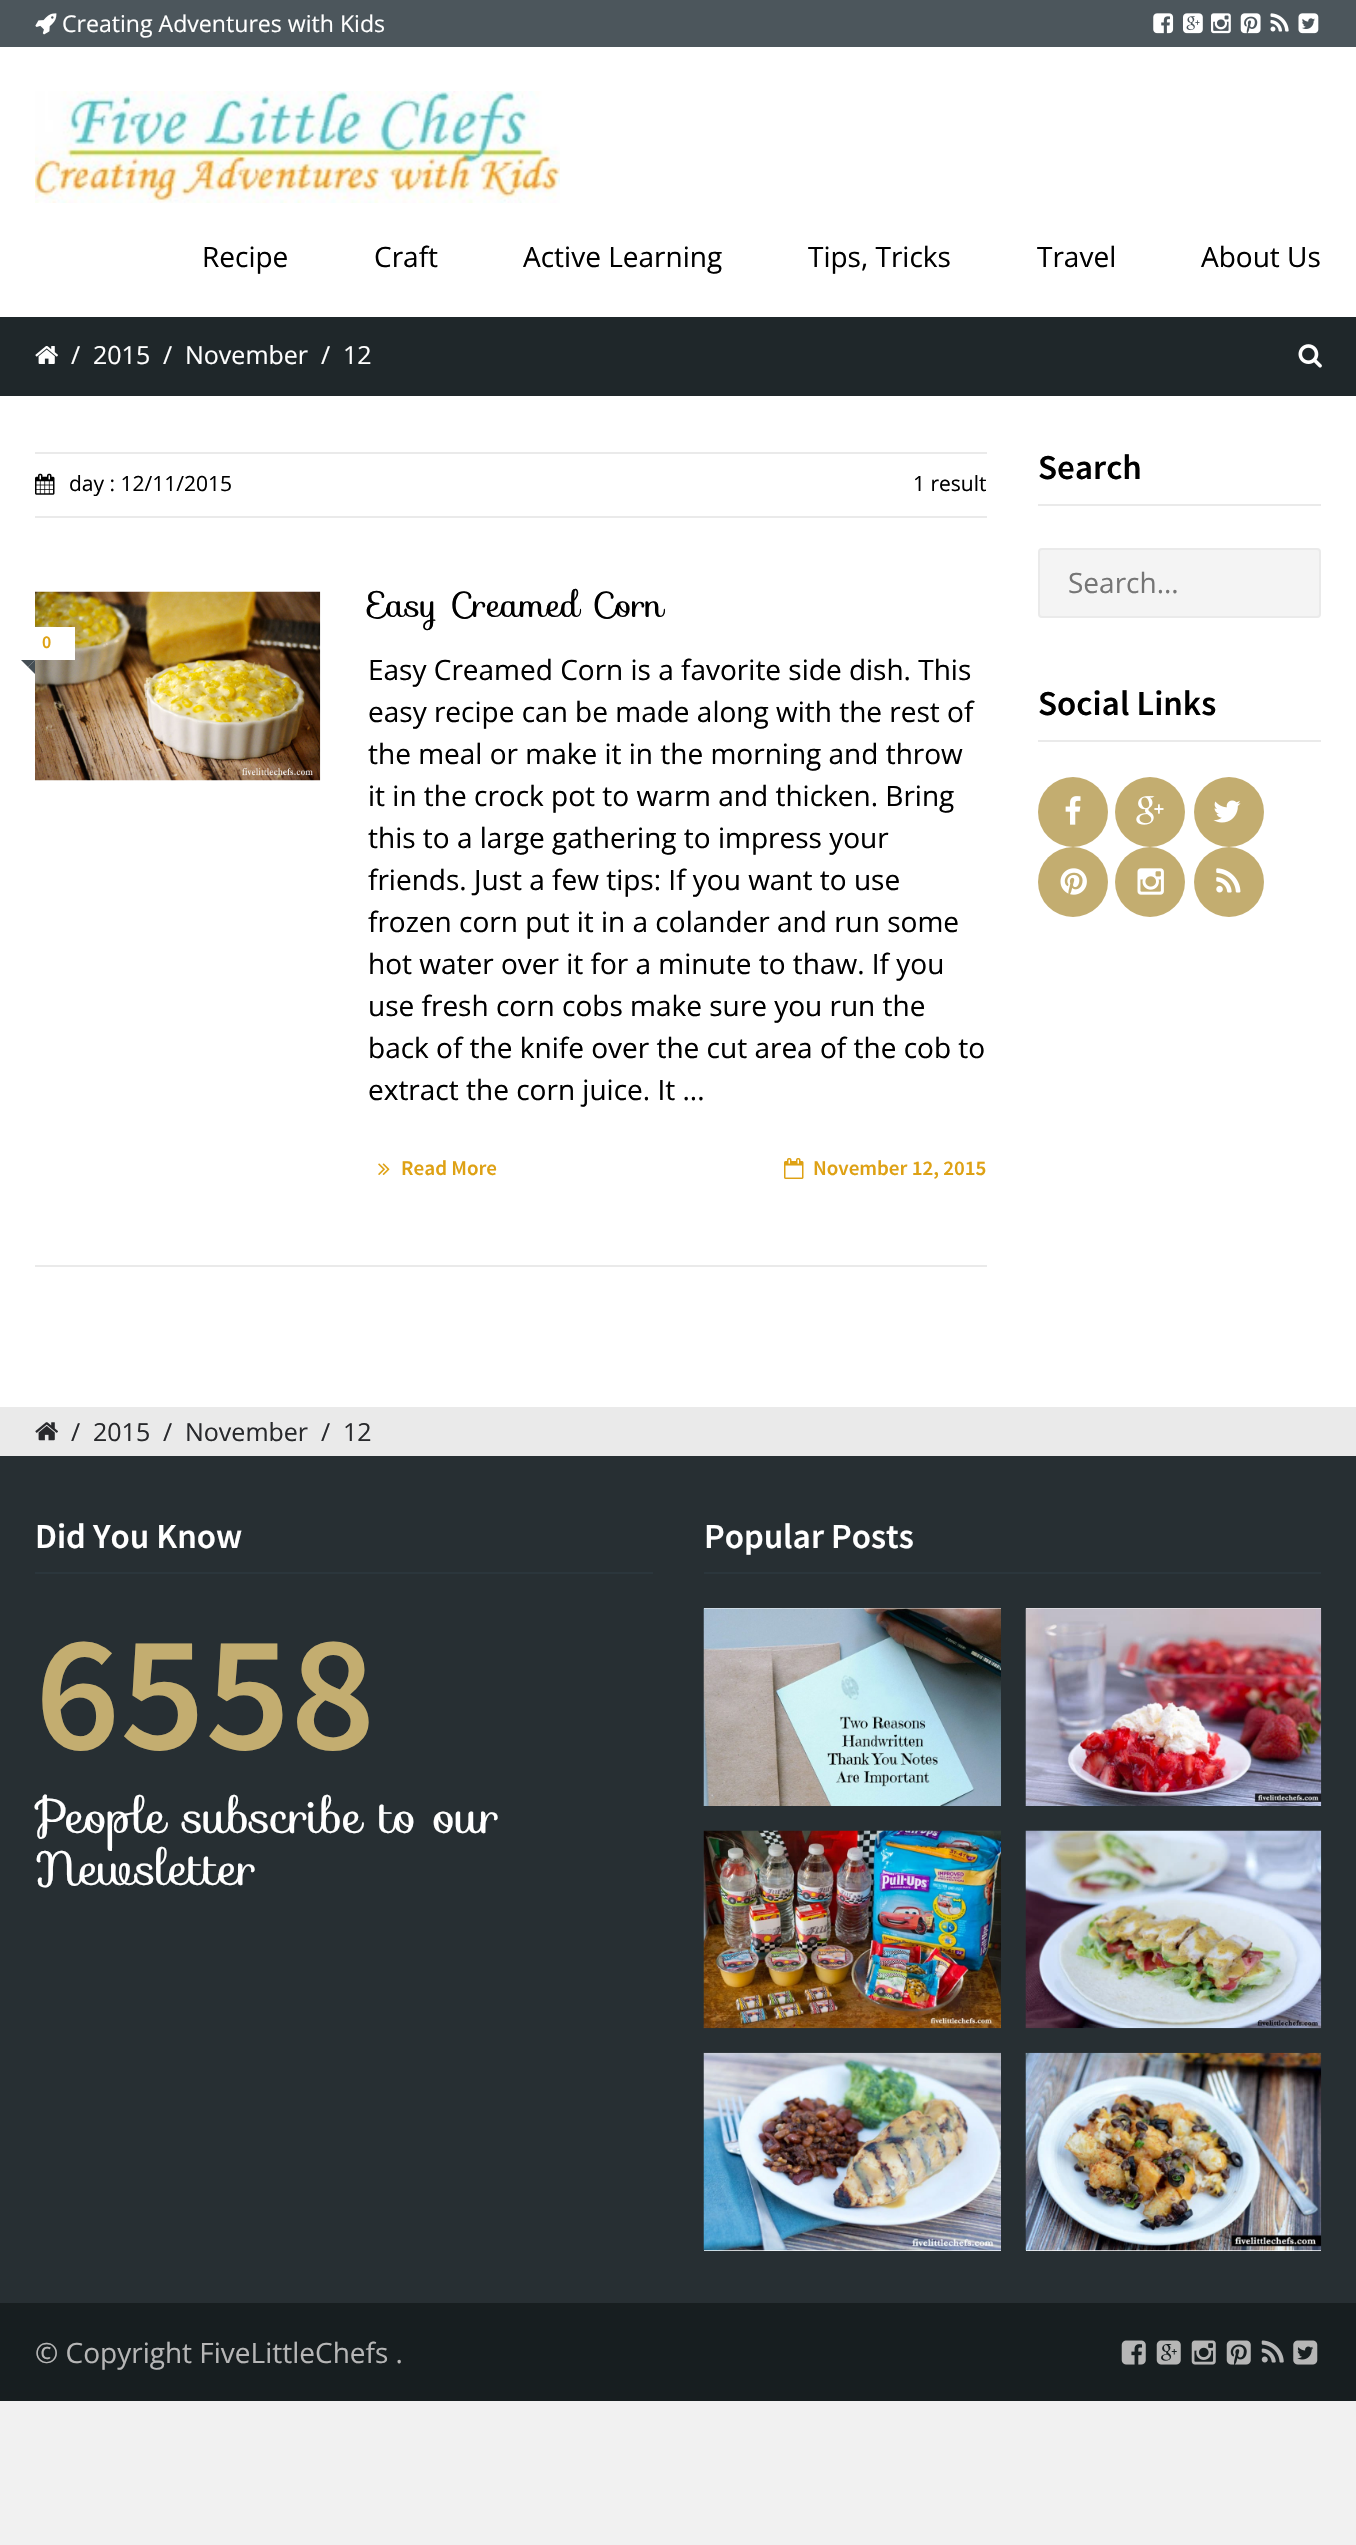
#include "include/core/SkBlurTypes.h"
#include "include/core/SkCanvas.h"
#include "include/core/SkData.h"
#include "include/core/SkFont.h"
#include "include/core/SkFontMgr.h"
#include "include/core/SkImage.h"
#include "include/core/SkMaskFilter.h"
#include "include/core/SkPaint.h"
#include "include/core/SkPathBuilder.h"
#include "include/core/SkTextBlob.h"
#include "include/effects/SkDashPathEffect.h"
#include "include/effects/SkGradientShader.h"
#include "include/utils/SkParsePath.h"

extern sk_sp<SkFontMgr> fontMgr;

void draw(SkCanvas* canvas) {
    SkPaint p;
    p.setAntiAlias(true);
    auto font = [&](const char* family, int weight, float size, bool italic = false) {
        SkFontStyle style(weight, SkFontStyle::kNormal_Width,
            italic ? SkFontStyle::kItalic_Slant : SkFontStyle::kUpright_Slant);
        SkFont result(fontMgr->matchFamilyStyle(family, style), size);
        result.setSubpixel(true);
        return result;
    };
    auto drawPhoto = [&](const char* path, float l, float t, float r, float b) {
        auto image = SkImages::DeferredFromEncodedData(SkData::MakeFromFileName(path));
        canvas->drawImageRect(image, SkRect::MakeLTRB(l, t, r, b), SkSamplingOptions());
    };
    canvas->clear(0xFFF1F1F1);
    p.setColor(0xFF4C565C);
    canvas->drawRect(SkRect::MakeLTRB(0, 0, 1356, 47), p);
    drawPhoto("media/1.png", 35, 13, 57, 35);
    auto font1 = font("Open Sans", 400, 23.1f);
    p.setColor(0xFFFFFFFF);
    canvas->drawString("Creating Adventures with Kids", 62, 32, font1, p);
    drawPhoto("media/2.png", 1153, 13, 1174, 34);
    drawPhoto("media/3.png", 1183, 13, 1203, 34);
    drawPhoto("media/4.png", 1211, 13, 1231, 34);
    drawPhoto("media/5.png", 1240, 13, 1261, 34);
    drawPhoto("media/6.png", 1270, 13, 1289, 32);
    drawPhoto("media/7.png", 1298, 13, 1319, 34);
    canvas->drawRect(SkRect::MakeLTRB(0, 47, 1356, 317), p);
    drawPhoto("media/8.png", 35, 91, 560, 203);
    auto font2 = font("Open Sans", 400, 28);
    p.setColor(0xFF000000);
    {
        const struct { const char* s; float x, y; } items[] = {
            {"Recipe", 202, 267},
            {"Craft", 374, 267},
            {"Active Learning", 523, 267},
            {"Tips, Tricks", 808, 267},
            {"Travel", 1037, 267},
            {"About Us", 1201, 267},
        };
        for (auto [s, x, y] : items) {
            canvas->drawString(s, x, y, font2, p);
        }
    }
    p.setColor(0xFF1F272A);
    canvas->drawRect(SkRect::MakeLTRB(0, 317, 1356, 396), p);
    drawPhoto("media/9.png", 35, 346, 58, 364);
    auto font3 = font("Open Sans", 400, 25);
    p.setColor(0xFFFFFFFF);
    {
        const struct { const char* s; float x, y; } items[] = {
            {"/", 71, 364},
            {"2015", 93, 364},
            {"/", 163, 364},
            {"November", 185, 364},
            {"/", 321, 364},
            {"12", 343, 364},
        };
        for (auto [s, x, y] : items) {
            canvas->drawString(s, x, y, font3, p);
        }
    }
    drawPhoto("media/10.png", 1298, 344, 1322, 368);
    {
        const struct { float l, t, r, b; SkColor color; } items[] = {
            {0, 396, 1356, 1407, 0xFFFFFFFF},
            {35, 452, 987, 454, 0xFFEAEAEA},
            {35, 516, 987, 518, 0xFFEAEAEA},
        };
        for (auto [l, t, r, b, color] : items) {
            p.setColor(color);
            canvas->drawRect(SkRect::MakeLTRB(l, t, r, b), p);
        }
    }
    drawPhoto("media/11.png", 35, 473, 55, 495);
    auto font4 = font("Open Sans", 400, 21);
    p.setColor(0xFF000000);
    canvas->drawString("day : 12/11/2015", 69, 491, font4, p);
    canvas->drawString("1 result", 913, 491, font4, p);
    p.setColor(0xFFEAEAEA);
    canvas->drawRect(SkRect::MakeLTRB(35, 1265, 987, 1267), p);
    drawPhoto("media/12.png", 35, 591, 321, 781);
    p.setColor(0xFFFFFFFF);
    canvas->drawRect(SkRect::MakeLTRB(35, 627, 75, 660), p);
    auto font5 = font("Source Sans Pro", 600, 18);
    p.setColor(0xFFDEA114);
    canvas->drawString("0", 42, 648, font5, p);
    p.setColor(0xFF454E54);
    canvas->drawPath(SkPathBuilder().moveTo(21, 660).lineTo(35, 660).lineTo(28, 667).close().detach(), p);
    canvas->drawPath(SkPathBuilder().moveTo(35, 660).lineTo(35, 674).lineTo(28, 667).close().detach(), p);
    auto font6 = font("Sofia", 400, 35);
    p.setColor(0xFF000000);
    canvas->drawString("Easy Creamed Corn", 368, 617, font6, p);
    {
        const struct { const char* s; float x, y; } items[] = {
            {"Easy Creamed Corn is a favorite side dish. This", 368, 680},
            {"easy recipe can be made along with the rest of", 368, 722},
            {"the meal or make it in the morning and throw", 368, 764},
            {"it in the crock pot to warm and thicken. Bring", 368, 806},
            {"this to a large gathering to impress your", 368, 848},
            {"friends. Just a few tips: If you want to use", 368, 890},
            {"frozen corn put it in a colander and run some", 368, 932},
            {"hot water over it for a minute to thaw. If you", 368, 974},
            {"use fresh corn cobs make sure you run the", 368, 1016},
            {"back of the knife over the cut area of the cob to", 368, 1058},
            {"extract the corn juice. It ...", 368, 1100},
        };
        for (auto [s, x, y] : items) {
            canvas->drawString(s, x, y, font2, p);
        }
    }
    drawPhoto("media/13.png", 378, 1163, 390, 1175);
    auto font7 = font("Source Sans Pro", 600, 21);
    p.setColor(0xFFDEA114);
    canvas->drawString("Read More", 401, 1175, font7, p);
    drawPhoto("media/14.png", 784, 1158, 804, 1179);
    canvas->drawString("November 12, 2015", 813, 1175, font7, p);
    p.setColor(0xFFEAEAEA);
    canvas->drawRect(SkRect::MakeLTRB(1038, 504, 1321, 506), p);
    auto font8 = font("Source Sans Pro", 600, 35);
    p.setColor(0xFF000000);
    canvas->drawString("Search", 1038, 479, font8, p);
    p.setColor(0xFFF4F4F4);
    canvas->drawRoundRect(SkRect::MakeLTRB(1039, 549, 1320, 617), 3, 3, p);
    p.setStyle(SkPaint::kStroke_Style);
    p.setStrokeWidth(2);
    p.setColor(0xFFEAEAEA);
    canvas->drawRoundRect(SkRect::MakeLTRB(1039, 549, 1320, 617), 3, 3, p);
    p.setStyle(SkPaint::kFill_Style);
    p.setColor(0xFF757575);
    canvas->drawString("Search...", 1068, 593, font2, p);
    p.setColor(0xFFEAEAEA);
    canvas->drawRect(SkRect::MakeLTRB(1038, 740, 1321, 742), p);
    p.setColor(0xFF000000);
    canvas->drawString("Social Links", 1038, 715, font8, p);
    p.setColor(0xFFC3AD70);
    canvas->drawCircle(1073, 812, 35, p);
    drawPhoto("media/15.png", 1065, 796, 1081, 825);
    canvas->drawCircle(1150, 812, 35, p);
    drawPhoto("media/16.png", 1136, 796, 1164, 825);
    canvas->drawCircle(1229, 812, 35, p);
    drawPhoto("media/17.png", 1213, 800, 1241, 823);
    canvas->drawCircle(1073, 882, 35, p);
    drawPhoto("media/18.png", 1060, 868, 1087, 895);
    canvas->drawCircle(1150, 882, 35, p);
    drawPhoto("media/19.png", 1137, 868, 1164, 895);
    canvas->drawCircle(1229, 882, 35, p);
    drawPhoto("media/20.png", 1216, 868, 1241, 893);
    p.setColor(0xFFEAEAEA);
    canvas->drawRect(SkRect::MakeLTRB(0, 1407, 1356, 1456), p);
    drawPhoto("media/21.png", 35, 1422, 58, 1441);
    p.setColor(0xFF28292C);
    {
        const struct { const char* s; float x, y; } items[] = {
            {"/", 71, 1441},
            {"2015", 93, 1441},
            {"/", 163, 1441},
            {"November", 185, 1441},
            {"/", 321, 1441},
            {"12", 343, 1441},
        };
        for (auto [s, x, y] : items) {
            canvas->drawString(s, x, y, font3, p);
        }
    }
    p.setColor(0xFF272F33);
    canvas->drawRect(SkRect::MakeLTRB(0, 1456, 1356, 2303), p);
    p.setColor(0xFF2B363C);
    canvas->drawRect(SkRect::MakeLTRB(35, 1572, 653, 1574), p);
    p.setColor(0xFFFFFFFF);
    canvas->drawString("Did You Know", 35, 1548, font8, p);
    auto font9 = font("Source Sans Pro", 600, 166);
    p.setColor(0xFFC3AD70);
    canvas->drawString("6558", 35, 1749, font9, p);
    auto font10 = font("Sofia", 400, 47.5f);
    p.setColor(0xFFFFFFFF);
    canvas->drawString("People subscribe to our", 35, 1833, font10, p);
    canvas->drawString("Newsletter", 35, 1885, font10, p);
    p.setColor(0xFF2B363C);
    canvas->drawRect(SkRect::MakeLTRB(704, 1572, 1321, 1574), p);
    p.setColor(0xFFFFFFFF);
    canvas->drawString("Popular Posts", 704, 1548, font8, p);
    canvas->drawRect(SkRect::MakeLTRB(704, 1608, 1001, 1609), p);
    drawPhoto("media/22.png", 703, 1608, 1001, 1806);
    canvas->drawRect(SkRect::MakeLTRB(1026, 1608, 1321, 1609), p);
    drawPhoto("media/23.png", 1025, 1608, 1322, 1806);
    drawPhoto("media/24.png", 703, 1830, 1001, 2029);
    drawPhoto("media/25.png", 1025, 1830, 1322, 2029);
    canvas->drawRect(SkRect::MakeLTRB(704, 2250, 1001, 2251), p);
    drawPhoto("media/26.png", 703, 2052, 1001, 2251);
    canvas->drawRect(SkRect::MakeLTRB(1026, 2250, 1321, 2251), p);
    drawPhoto("media/27.png", 1025, 2052, 1322, 2251);
    p.setColor(0xFF171E20);
    canvas->drawRect(SkRect::MakeLTRB(0, 2303, 1356, 2401), p);
    p.setColor(0xFFB6B6B6);
    canvas->drawString("© Copyright FiveLittleChefs .", 35, 2363, font2, p);
    drawPhoto("media/28.png", 1121, 2340, 1146, 2365);
    drawPhoto("media/29.png", 1156, 2340, 1181, 2365);
    drawPhoto("media/30.png", 1191, 2340, 1216, 2365);
    drawPhoto("media/31.png", 1226, 2340, 1251, 2365);
    drawPhoto("media/32.png", 1261, 2340, 1284, 2363);
    drawPhoto("media/33.png", 1293, 2340, 1318, 2365);
}
